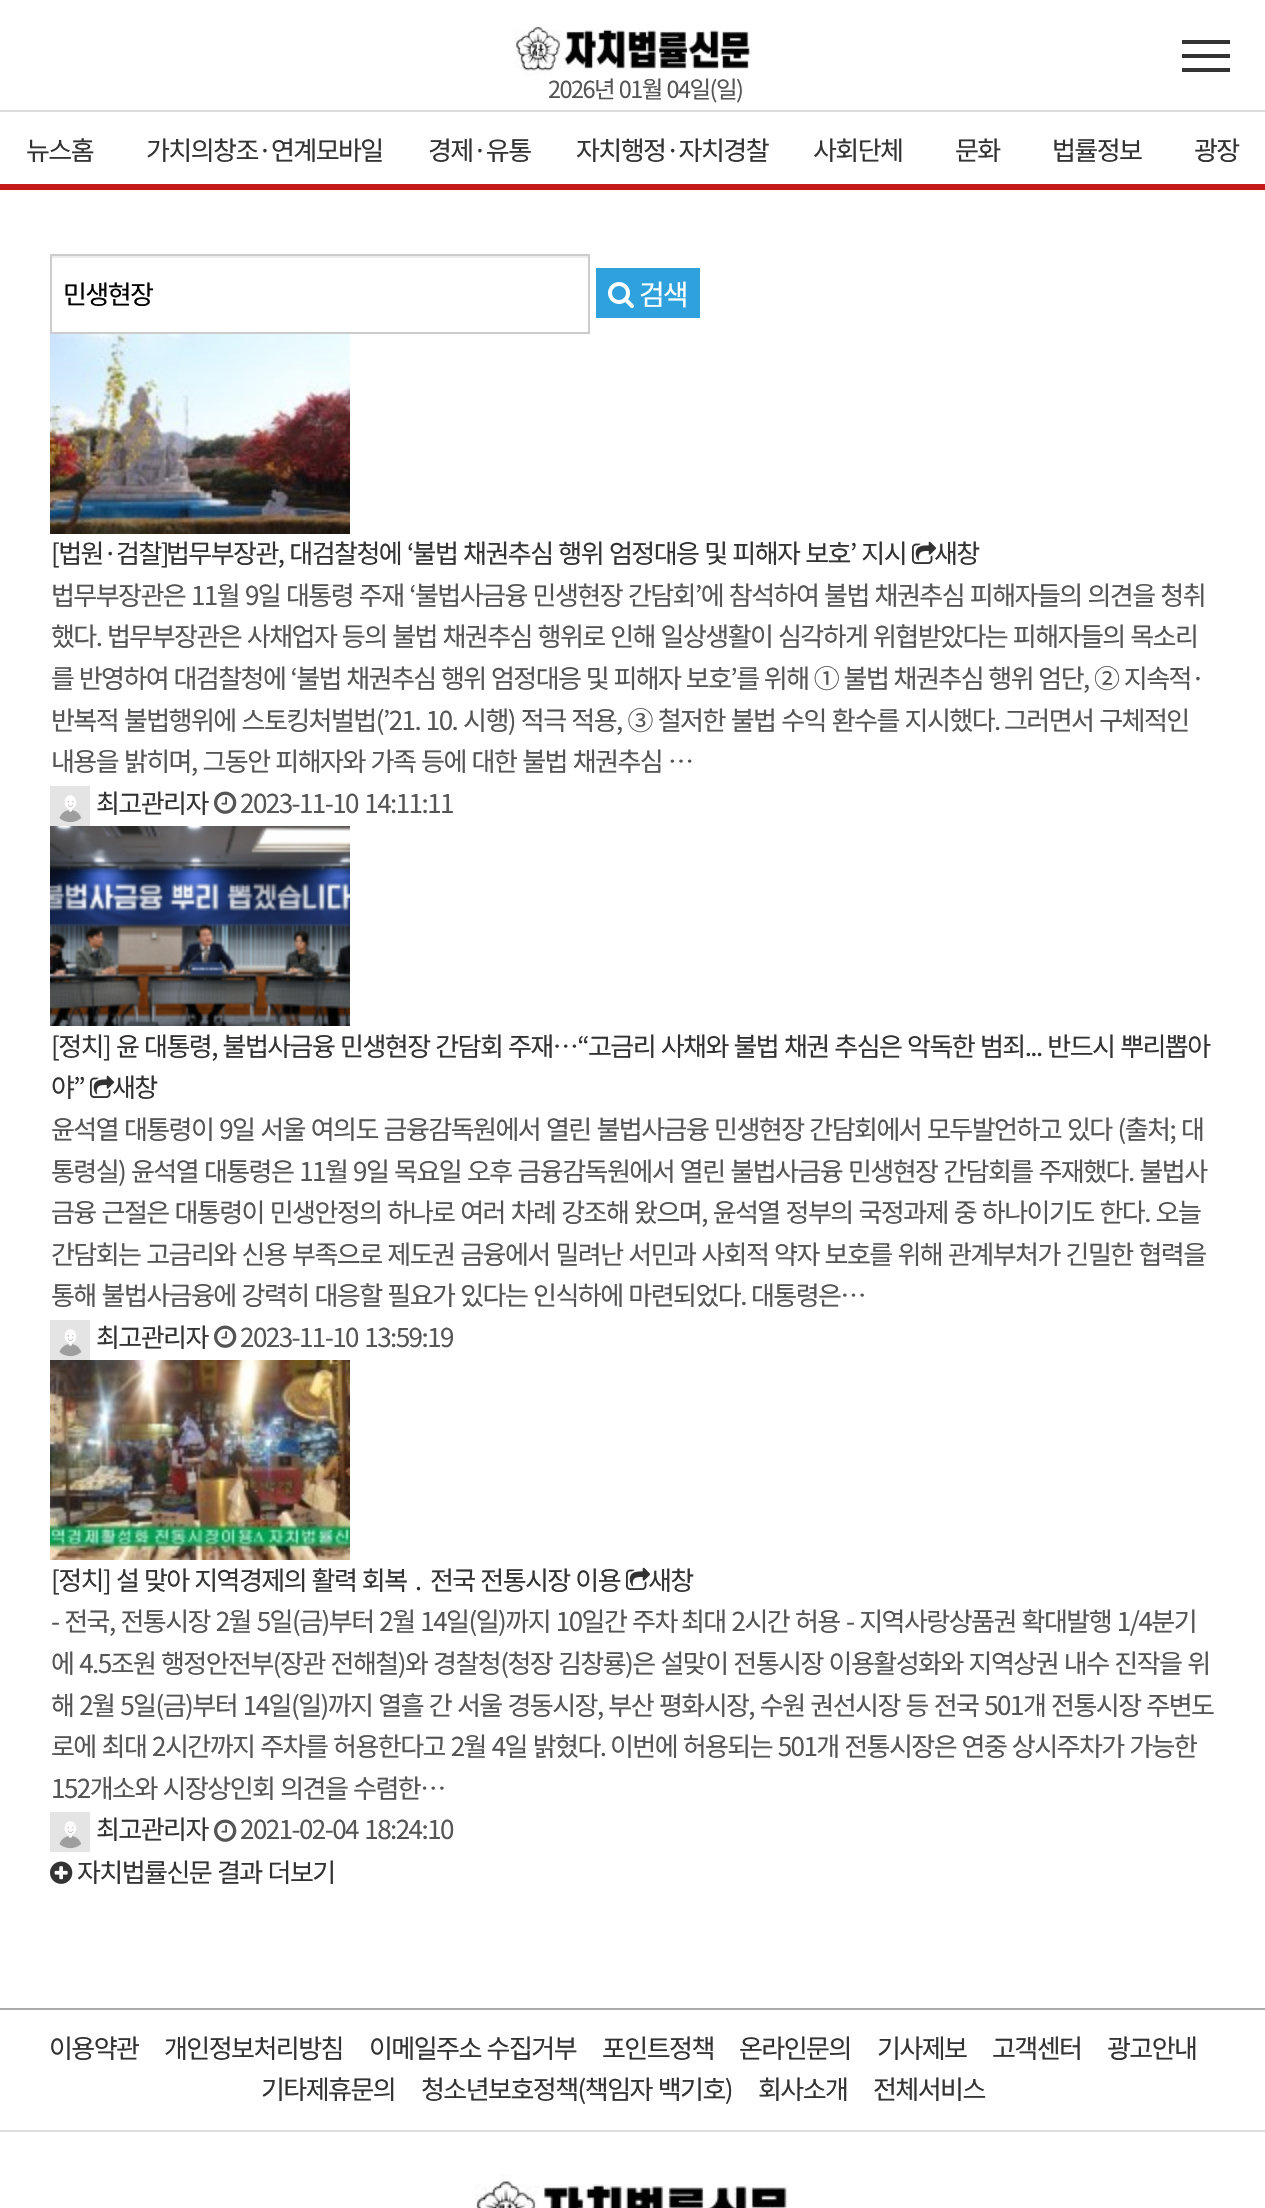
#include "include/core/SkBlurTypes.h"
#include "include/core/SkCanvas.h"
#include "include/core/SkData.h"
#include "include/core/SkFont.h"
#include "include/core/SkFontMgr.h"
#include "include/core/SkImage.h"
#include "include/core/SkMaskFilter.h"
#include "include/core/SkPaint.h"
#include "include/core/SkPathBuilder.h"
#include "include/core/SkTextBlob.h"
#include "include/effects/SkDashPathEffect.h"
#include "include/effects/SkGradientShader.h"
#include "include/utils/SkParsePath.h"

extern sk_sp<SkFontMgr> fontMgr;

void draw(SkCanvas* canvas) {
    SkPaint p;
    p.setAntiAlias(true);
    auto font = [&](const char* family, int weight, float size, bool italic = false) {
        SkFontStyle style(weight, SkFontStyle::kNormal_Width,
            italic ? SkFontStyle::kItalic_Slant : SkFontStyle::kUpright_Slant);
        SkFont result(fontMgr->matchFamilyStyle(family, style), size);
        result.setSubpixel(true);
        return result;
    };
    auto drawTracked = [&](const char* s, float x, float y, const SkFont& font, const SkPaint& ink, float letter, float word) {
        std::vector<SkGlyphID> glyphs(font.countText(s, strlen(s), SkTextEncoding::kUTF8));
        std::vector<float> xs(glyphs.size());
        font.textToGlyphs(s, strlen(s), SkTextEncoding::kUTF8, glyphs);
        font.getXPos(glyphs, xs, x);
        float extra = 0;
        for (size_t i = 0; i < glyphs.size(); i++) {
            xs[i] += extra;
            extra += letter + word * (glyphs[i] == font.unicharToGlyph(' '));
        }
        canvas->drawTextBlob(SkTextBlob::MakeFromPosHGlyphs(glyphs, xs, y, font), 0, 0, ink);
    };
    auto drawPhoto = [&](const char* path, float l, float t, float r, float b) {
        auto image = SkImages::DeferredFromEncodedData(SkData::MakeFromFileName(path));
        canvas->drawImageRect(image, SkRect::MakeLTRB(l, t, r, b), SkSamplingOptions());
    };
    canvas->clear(0xFFFFFFFF);
    {
        const struct { float l, t, r, b; SkColor color; } items[] = {
            {1182, 40, 1230, 44, 0xFF333333},
            {1182, 68, 1230, 72, 0xFF333333},
            {1182, 54, 1230, 58, 0xFF333333},
        };
        for (auto [l, t, r, b, color] : items) {
            p.setColor(color);
            canvas->drawRect(SkRect::MakeLTRB(l, t, r, b), p);
        }
    }
    drawPhoto("media/1.png", 514, 25, 752, 76);
    auto font1 = font("Noto Sans KR", 400, 23.5f);
    p.setColor(0xFF555555);
    drawTracked("2026년 01월 04일(일)", 548, 98, font1, p, -1.55f, 1);
    p.setColor(0xFFDDDDDD);
    canvas->drawRect(SkRect::MakeLTRB(0, 110, 1265, 112), p);
    p.setColor(0xFFC51A18);
    canvas->drawRect(SkRect::MakeLTRB(0, 184, 1265, 190), p);
    auto font2 = font("Noto Sans KR", 400, 26);
    p.setColor(0xFF333333);
    {
        const struct { const char* s; float x, y; } items[] = {
            {"뉴스홈", 26, 160},
            {"가치의창조·연계모바일", 146, 160},
            {"경제·유통", 428, 160},
            {"자치행정·자치경찰", 576, 160},
            {"사회단체", 813, 160},
            {"문화", 955, 160},
            {"법률정보", 1052, 160},
            {"광장", 1194, 160},
        };
        for (auto [s, x, y] : items) {
            drawTracked(s, x, y, font2, p, -1.55f, 0);
        }
    }
    p.setColor(0xFFECECEC);
    canvas->drawRect(SkRect::MakeLTRB(52, 256, 588, 258), p);
    p.setStyle(SkPaint::kStroke_Style);
    p.setStrokeWidth(2);
    p.setColor(0xFFCCCCCC);
    canvas->drawRect(SkRect::MakeLTRB(51, 255, 589, 333), p);
    p.setStyle(SkPaint::kFill_Style);
    p.setColor(0xFF000000);
    drawTracked("민생현장", 63, 304, font2, p, -1.55f, 0);
    p.setColor(0xFF2FA2DD);
    canvas->drawRect(SkRect::MakeLTRB(596, 268, 700, 318), p);
    drawPhoto("media/2.png", 608, 282, 634, 308);
    auto font3 = font("Noto Sans KR", 400, 28);
    p.setColor(0xFFFFFFFF);
    drawTracked("검색", 639, 305, font3, p, -2, 0);
    drawPhoto("media/3.png", 50, 334, 350, 534);
    p.setColor(0xFF333333);
    drawTracked("[법원·검찰]", 51, 563, font2, p, -1.55f, 0);
    drawTracked("법무부장관, 대검찰청에 ‘불법 채권추심 행위 엄정대응 및 피해자 보호’ 지시", 166, 563, font2, p, -1.55f, 1.5f);
    drawPhoto("media/4.png", 912, 541, 937, 564);
    drawTracked("새창", 934, 563, font2, p, -1.55f, 0);
    p.setColor(0xFF555555);
    drawTracked("법무부장관은 11월 9일 대통령 주재 ‘불법사금융 민생현장 간담회’에 참석하여 불법 채권추심 피해자들의 의견을 청취", 51, 605, font2, p, -1.55f, 1.5f);
    drawTracked("했다. 법무부장관은 사채업자 등의 불법 채권추심 행위로 인해 일상생활이 심각하게 위협받았다는 피해자들의 목소리", 51, 646, font2, p, -1.55f, 1.3f);
    drawTracked("를 반영하여 대검찰청에 ‘불법 채권추심 행위 엄정대응 및 피해자 보호’를 위해 ① 불법 채권추심 행위 엄단, ② 지속적·", 51, 688, font2, p, -1.55f, 1);
    {
        const struct { const char* s; float x, y; } items[] = {
            {"반복적 불법행위에 스토킹처벌법(’21. 10. 시행) 적극 적용, ③ 철저한 불법 수익 환수를 지시했다.", 51, 730},
            {"그러면서 구체적인", 1004, 730},
            {"내용을 밝히며, 그동안 피해자와 가족 등에 대한 불법 채권추심 …", 51, 771},
        };
        for (auto [s, x, y] : items) {
            drawTracked(s, x, y, font2, p, -1.55f, 1.5f);
        }
    }
    drawPhoto("media/5.png", 50, 786, 90, 826);
    p.setColor(0xFF333333);
    drawTracked("최고관리자", 96, 813, font2, p, -1.55f, 0);
    drawPhoto("media/6.png", 214, 791, 237, 814);
    p.setColor(0xFF555555);
    drawTracked("2023-11-10 14:11:11", 240, 813, font2, p, -1.55f, 2);
    drawPhoto("media/7.png", 50, 826, 350, 1026);
    p.setColor(0xFF333333);
    drawTracked("[정치]", 51, 1056, font2, p, -1.55f, 0);
    drawTracked("윤 대통령, 불법사금융 민생현장 간담회 주재…“고금리 사채와 불법 채권 추심은 악독한 범죄... 반드시 뿌리뽑아", 116, 1056, font2, p, -1.55f, 1.4f);
    drawTracked("야”", 51, 1097, font2, p, -1.55f, 0);
    drawPhoto("media/4.png", 90, 1075, 115, 1098);
    drawTracked("새창", 112, 1097, font2, p, -1.55f, 0);
    p.setColor(0xFF555555);
    drawTracked("윤석열 대통령이 9일 서울 여의도 금융감독원에서 열린 불법사금융 민생현장 간담회에서 모두발언하고 있다 (출처; 대", 51, 1139, font2, p, -1.55f, 1.5f);
    drawTracked("통령실)", 51, 1181, font2, p, -1.55f, 0);
    {
        const struct { const char* s; float x, y; } items[] = {
            {"윤석열 대통령은 11월 9일 목요일 오후 금융감독원에서 열린 불법사금융 민생현장 간담회를 주재했다. 불법사", 131, 1181},
            {"금융 근절은 대통령이 민생안정의 하나로 여러 차례 강조해 왔으며, 윤석열 정부의 국정과제 중 하나이기도 한다. 오늘", 51, 1222},
            {"간담회는 고금리와 신용 부족으로 제도권 금융에서 밀려난 서민과 사회적 약자 보호를 위해 관계부처가 긴밀한 협력을", 51, 1264},
            {"통해 불법사금융에 강력히 대응할 필요가 있다는 인식하에 마련되었다.", 51, 1305},
        };
        for (auto [s, x, y] : items) {
            drawTracked(s, x, y, font2, p, -1.55f, 1.5f);
        }
    }
    drawTracked("대통령은…", 751, 1305, font2, p, -1.55f, 0);
    drawPhoto("media/5.png", 50, 1320, 90, 1360);
    p.setColor(0xFF333333);
    drawTracked("최고관리자", 96, 1347, font2, p, -1.55f, 0);
    drawPhoto("media/6.png", 214, 1325, 237, 1348);
    p.setColor(0xFF555555);
    drawTracked("2023-11-10 13:59:19", 240, 1347, font2, p, -1.55f, 2);
    drawPhoto("media/8.png", 50, 1360, 350, 1560);
    p.setColor(0xFF333333);
    drawTracked("[정치]", 51, 1590, font2, p, -1.55f, 0);
    drawTracked("설 맞아 지역경제의 활력 회복", 116, 1590, font2, p, -1.55f, 1.25f);
    auto font4 = font("Noto Sans", 400, 26);
    drawTracked("․", 412, 1590, font4, p, -1.55f, 0);
    drawTracked("전국 전통시장 이용", 430, 1590, font2, p, -1.55f, 1.25f);
    drawPhoto("media/4.png", 626, 1567, 651, 1590);
    drawTracked("새창", 648, 1590, font2, p, -1.55f, 0);
    p.setColor(0xFF555555);
    {
        const struct { const char* s; float x, y; } items[] = {
            {"- 전국, 전통시장 2월 5일(금)부터 2월 14일(일)까지 10일간 주차", 51, 1631},
            {"최대 2시간 허용", 681, 1631},
            {"- 지역사랑상품권 확대발행 1/4분기", 846, 1631},
            {"에 4.5조원", 51, 1673},
            {"행정안전부(장관 전해철)와 경찰청(청장 김창룡)은 설맞이 전통시장 이용활성화와 지역상권 내수 진작을 위", 161, 1673},
            {"해 2월 5일(금)부터 14일(일)까지 열흘 간 서울 경동시장, 부산 평화시장, 수원 권선시장 등 전국 501개 전통시장 주변도", 51, 1715},
            {"로에 최대 2시간까지 주차를 허용한다고 2월 4일 밝혔다.", 51, 1756},
        };
        for (auto [s, x, y] : items) {
            drawTracked(s, x, y, font2, p, -1.55f, 1.5f);
        }
    }
    drawTracked("이번에 허용되는 501개 전통시장은 연중 상시주차가 가능한", 610, 1756, font2, p, -1.55f, 1.25f);
    drawTracked("152개소와 시장상인회 의견을 수렴한…", 51, 1798, font2, p, -1.55f, 1.5f);
    drawPhoto("media/5.png", 50, 1812, 90, 1852);
    p.setColor(0xFF333333);
    drawTracked("최고관리자", 96, 1839, font2, p, -1.55f, 0);
    drawPhoto("media/6.png", 214, 1819, 237, 1842);
    p.setColor(0xFF555555);
    drawTracked("2021-02-04 18:24:10", 240, 1839, font2, p, -1.55f, 2);
    drawPhoto("media/9.png", 50, 1861, 73, 1884);
    p.setColor(0xFF333333);
    drawTracked("자치법률신문", 77, 1882, font2, p, -1.55f, 0);
    drawTracked("결과 더보기", 217, 1882, font2, p, -1.55f, 1.5f);
    p.setColor(0xFFAAAAAA);
    canvas->drawRect(SkRect::MakeLTRB(0, 2008, 1265, 2010), p);
    p.setColor(0xFFDDDDDD);
    canvas->drawRect(SkRect::MakeLTRB(0, 2130, 1265, 2132), p);
    p.setColor(0xFF333333);
    drawTracked("이용약관", 49, 2058, font2, p, -1.55f, 0);
    drawTracked("개인정보처리방침", 164, 2058, font2, p, -1.55f, 0);
    drawTracked("이메일주소 수집거부", 369, 2058, font2, p, -1.55f, 1.5f);
    {
        const struct { const char* s; float x, y; } items[] = {
            {"포인트정책", 602, 2058},
            {"온라인문의", 739, 2058},
            {"기사제보", 877, 2058},
            {"고객센터", 992, 2058},
            {"광고안내", 1107, 2058},
            {"기타제휴문의", 261, 2099},
        };
        for (auto [s, x, y] : items) {
            drawTracked(s, x, y, font2, p, -1.55f, 0);
        }
    }
    drawTracked("청소년보호정책(책임자 백기호)", 421, 2099, font2, p, -1.55f, 1.5f);
    drawTracked("회사소개", 758, 2099, font2, p, -1.55f, 0);
    drawTracked("전체서비스", 873, 2099, font2, p, -1.55f, 0);
    drawPhoto("media/10.png", 474, 2174, 788, 2208);
}
